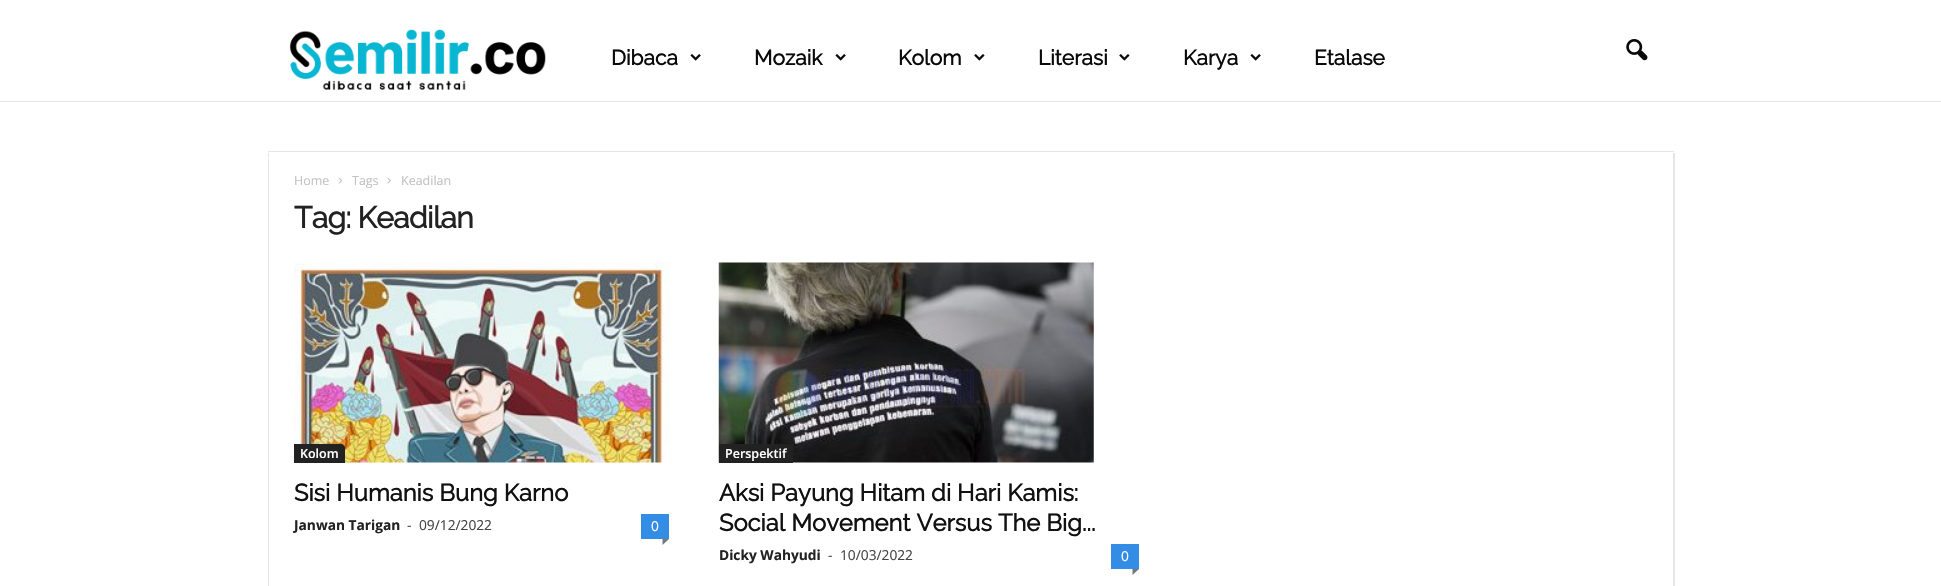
#include "include/core/SkBlurTypes.h"
#include "include/core/SkCanvas.h"
#include "include/core/SkData.h"
#include "include/core/SkFont.h"
#include "include/core/SkFontMgr.h"
#include "include/core/SkImage.h"
#include "include/core/SkMaskFilter.h"
#include "include/core/SkPaint.h"
#include "include/core/SkPathBuilder.h"
#include "include/core/SkTextBlob.h"
#include "include/effects/SkDashPathEffect.h"
#include "include/effects/SkGradientShader.h"
#include "include/utils/SkParsePath.h"

extern sk_sp<SkFontMgr> fontMgr;

void draw(SkCanvas* canvas) {
    SkPaint p;
    p.setAntiAlias(true);
    auto font = [&](const char* family, int weight, float size, bool italic = false) {
        SkFontStyle style(weight, SkFontStyle::kNormal_Width,
            italic ? SkFontStyle::kItalic_Slant : SkFontStyle::kUpright_Slant);
        SkFont result(fontMgr->matchFamilyStyle(family, style), size);
        result.setSubpixel(true);
        return result;
    };
    auto drawTracked = [&](const char* s, float x, float y, const SkFont& font, const SkPaint& ink, float letter, float word) {
        std::vector<SkGlyphID> glyphs(font.countText(s, strlen(s), SkTextEncoding::kUTF8));
        std::vector<float> xs(glyphs.size());
        font.textToGlyphs(s, strlen(s), SkTextEncoding::kUTF8, glyphs);
        font.getXPos(glyphs, xs, x);
        float extra = 0;
        for (size_t i = 0; i < glyphs.size(); i++) {
            xs[i] += extra;
            extra += letter + word * (glyphs[i] == font.unicharToGlyph(' '));
        }
        canvas->drawTextBlob(SkTextBlob::MakeFromPosHGlyphs(glyphs, xs, y, font), 0, 0, ink);
    };
    auto drawPhoto = [&](const char* path, float l, float t, float r, float b) {
        auto image = SkImages::DeferredFromEncodedData(SkData::MakeFromFileName(path));
        canvas->drawImageRect(image, SkRect::MakeLTRB(l, t, r, b), SkSamplingOptions());
    };
    canvas->clear(0xFFFFFFFF);
    p.setColor(0xFFE6E6E6);
    canvas->drawRect(SkRect::MakeLTRB(0, 101, 1941, 102), p);
    drawPhoto("media/1.png", 289, 29, 546, 90);
    auto font1 = font("Raleway", 700, 21);
    p.setColor(0xFF0A0A0A);
    canvas->drawString("Dibaca", 611, 65, font1, p);
    drawPhoto("media/2.png", 690, 54, 701, 61);
    canvas->drawString("Mozaik", 754, 65, font1, p);
    drawPhoto("media/2.png", 835, 54, 846, 61);
    canvas->drawString("Kolom", 898, 65, font1, p);
    drawPhoto("media/3.png", 974, 54, 985, 61);
    canvas->drawString("Literasi", 1038, 65, font1, p);
    drawPhoto("media/3.png", 1119, 54, 1130, 61);
    canvas->drawString("Karya", 1183, 65, font1, p);
    drawPhoto("media/2.png", 1250, 54, 1261, 61);
    canvas->drawString("Etalase", 1314, 65, font1, p);
    drawPhoto("media/4.png", 1626, 39, 1648, 61);
    p.setColor(0xFFE6E6E6);
    canvas->drawRect(SkRect::MakeLTRB(268, 151, 1674, 152), p);
    canvas->drawRect(SkRect::MakeLTRB(268, 153, 269, 586), p);
    auto font2 = font("Open Sans", 400, 12.5f);
    p.setColor(0xFFC3C3C3);
    canvas->drawString("Home", 294, 185, font2, p);
    drawPhoto("media/5.png", 338, 177, 342, 184);
    canvas->drawString("Tags", 352, 185, font2, p);
    drawPhoto("media/6.png", 387, 177, 391, 184);
    canvas->drawString("Keadilan", 401, 185, font2, p);
    auto font3 = font("Raleway", 700, 30);
    p.setColor(0xFF222222);
    drawTracked("Tag: Keadilan", 294, 228, font3, p, -0.6f, 0);
    drawPhoto("media/7.png", 294, 262, 669, 463);
    canvas->drawPath(SkPathBuilder().moveTo(294, 444).lineTo(341, 444).cubicTo(343, 444, 345, 446, 345, 448).lineTo(345, 463).lineTo(294, 463).close().detach(), p);
    auto font4 = font("Open Sans", 600, 12.5f);
    p.setColor(0xFFFFFFFF);
    canvas->drawString("Kolom", 300, 458, font4, p);
    auto font5 = font("Raleway", 700, 23.75f);
    p.setColor(0xFF111111);
    canvas->drawString("Sisi Humanis Bung Karno", 294, 501, font5, p);
    auto font6 = font("Open Sans", 700, 13.75f);
    p.setColor(0xFF222222);
    canvas->drawString("Janwan Tarigan", 294, 530, font6, p);
    auto font7 = font("Open Sans", 400, 13.75f);
    p.setColor(0xFF444444);
    canvas->drawString("-", 407, 530, font7, p);
    canvas->drawString("09/12/2022", 419, 530, font7, p);
    p.setColor(0xFF348DE5);
    canvas->drawRect(SkRect::MakeLTRB(641, 514, 669, 539), p);
    p.setColor(0xFFFFFFFF);
    canvas->drawString("0", 651, 531, font7, p);
    p.setColor(0xFF777777);
    canvas->drawPath(SkPathBuilder().moveTo(662.5f, 539).lineTo(669, 539).lineTo(662.5f, 545).close().detach(), p);
    drawPhoto("media/8.png", 718, 262, 1094, 463);
    p.setColor(0xFF222222);
    canvas->drawPath(SkPathBuilder().moveTo(719, 444).lineTo(789, 444).cubicTo(791, 444, 793, 446, 793, 448).lineTo(793, 463).lineTo(719, 463).close().detach(), p);
    p.setColor(0xFFFFFFFF);
    canvas->drawString("Perspektif", 725, 458, font4, p);
    p.setColor(0xFF111111);
    canvas->drawString("Aksi Payung Hitam di Hari Kamis:", 719, 501, font5, p);
    canvas->drawString("Social Movement Versus The Big...", 719, 531, font5, p);
    p.setColor(0xFF222222);
    canvas->drawString("Dicky Wahyudi", 719, 560, font6, p);
    p.setColor(0xFF444444);
    canvas->drawString("-", 828, 560, font7, p);
    canvas->drawString("10/03/2022", 840, 560, font7, p);
    p.setColor(0xFF348DE5);
    canvas->drawRect(SkRect::MakeLTRB(1111, 544, 1139, 569), p);
    p.setColor(0xFFFFFFFF);
    canvas->drawString("0", 1121, 561, font7, p);
    p.setColor(0xFF777777);
    canvas->drawPath(SkPathBuilder().moveTo(1132.5f, 569).lineTo(1139, 569).lineTo(1132.5f, 575).close().detach(), p);
    p.setColor(0xFFE6E6E6);
    canvas->drawRect(SkRect::MakeLTRB(1673, 153, 1675, 586), p);
}
